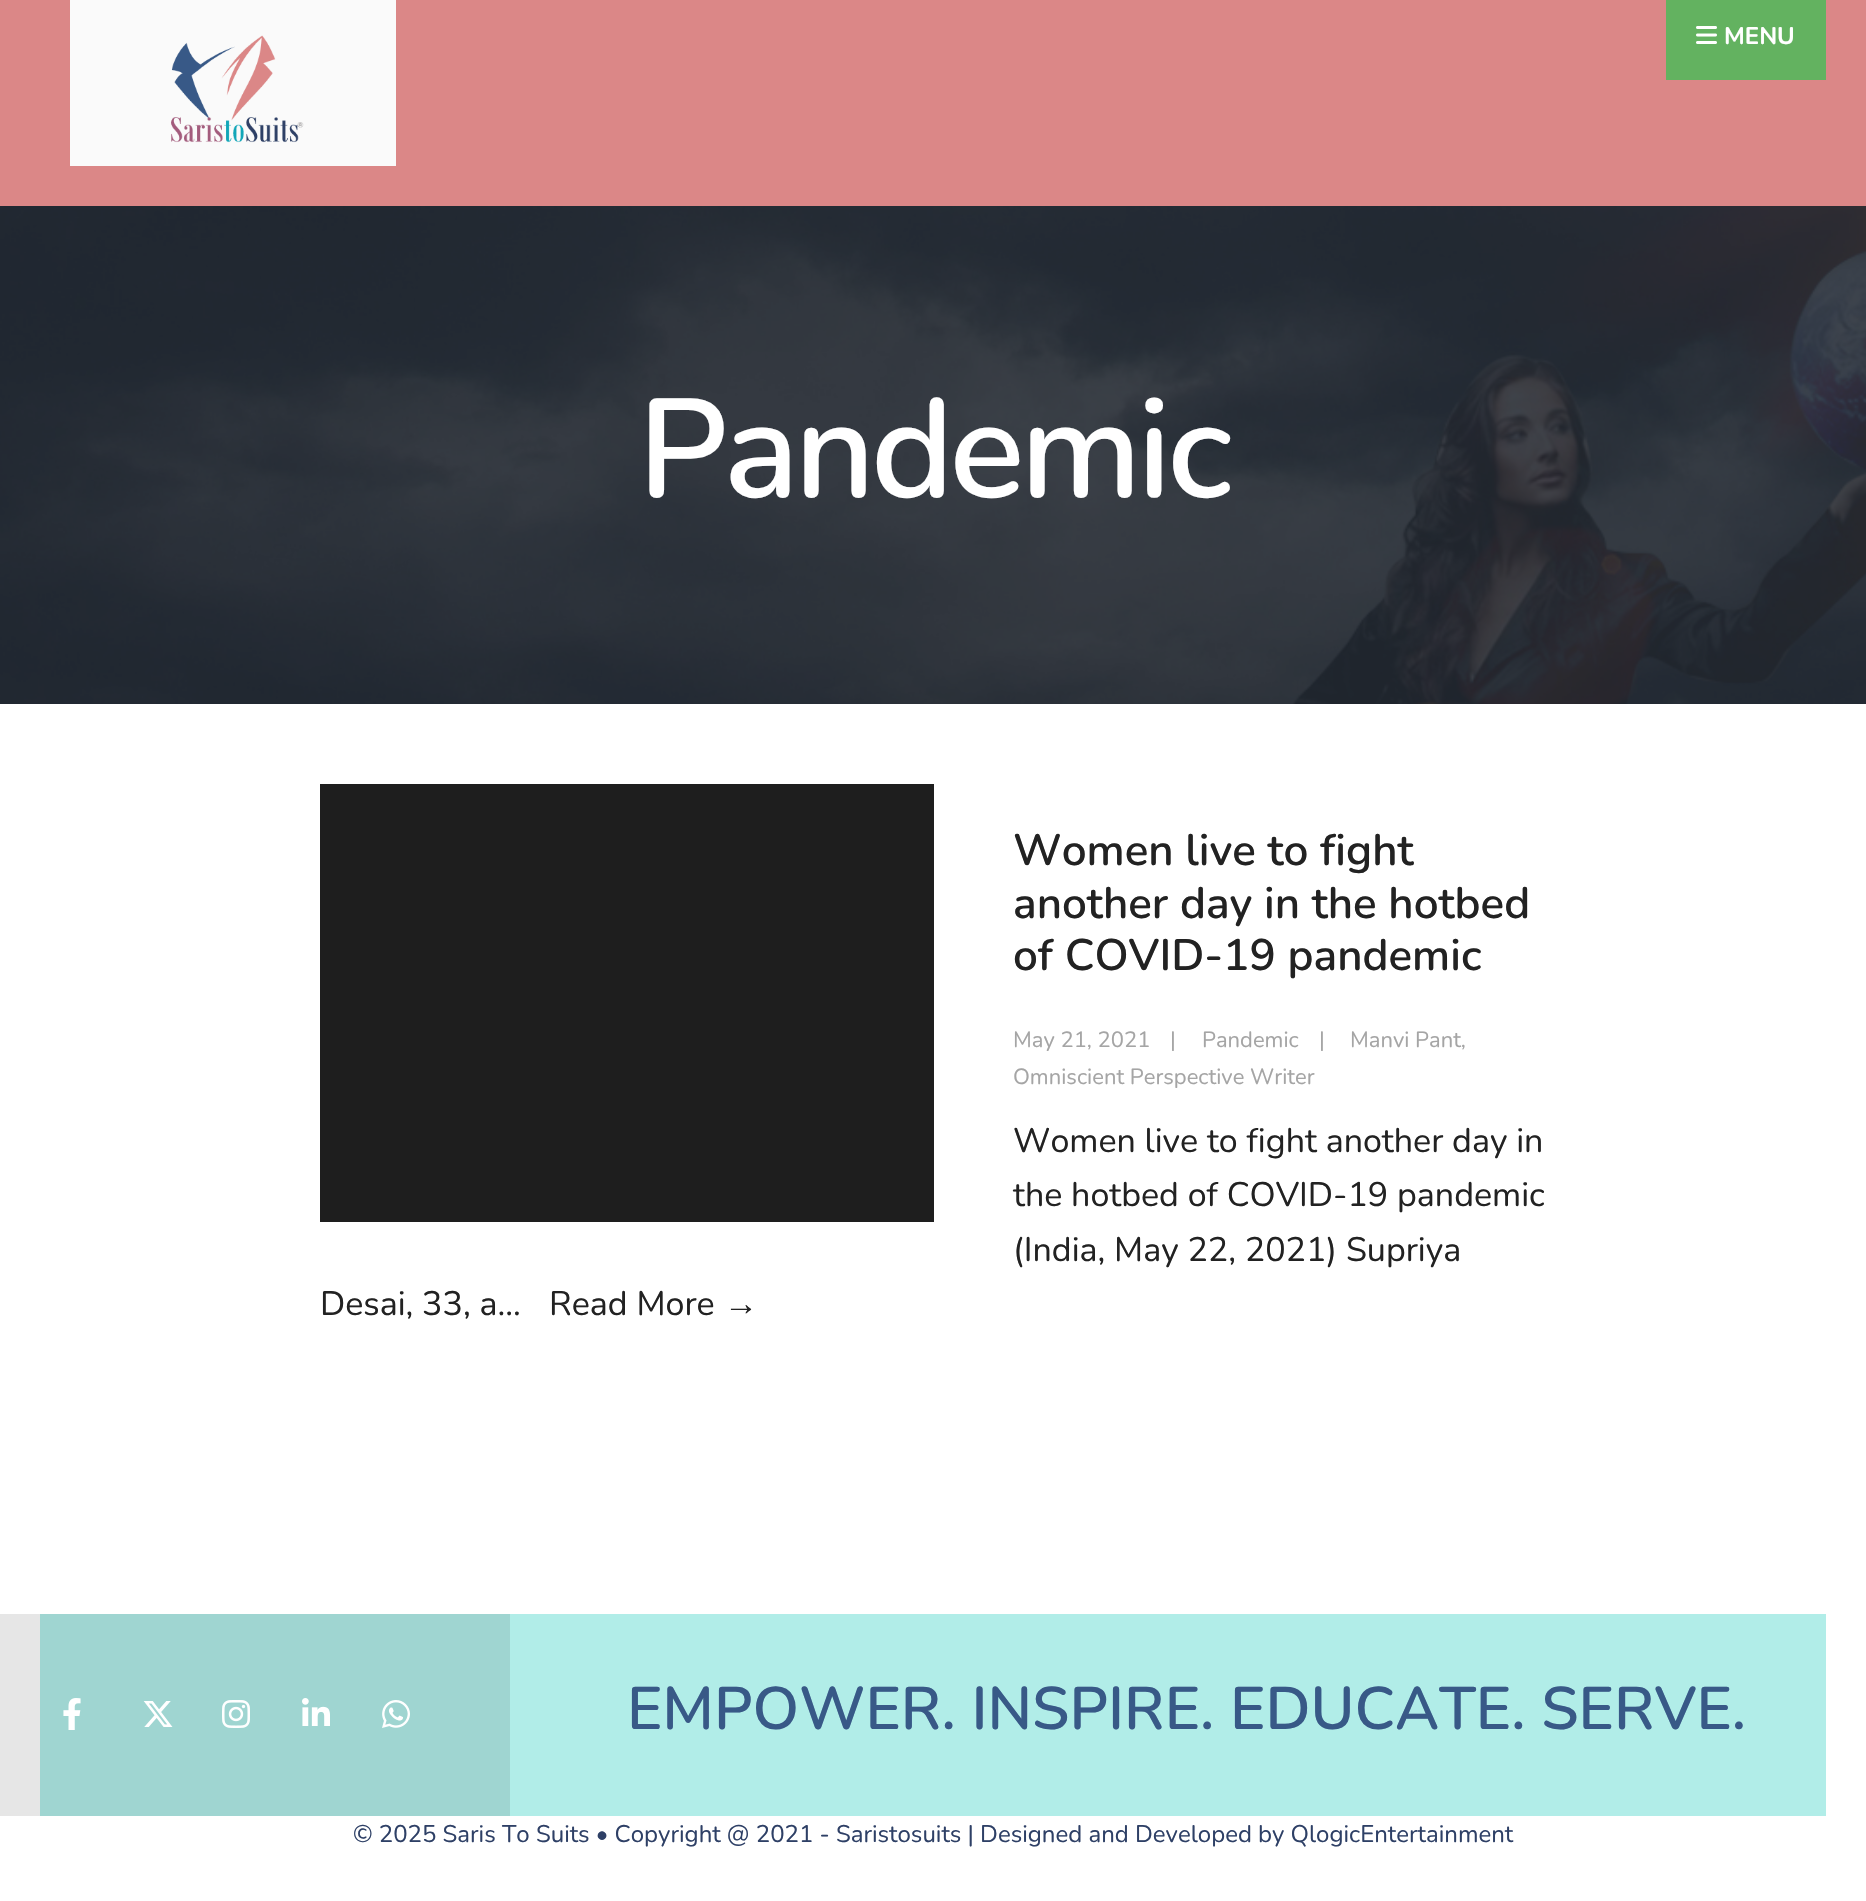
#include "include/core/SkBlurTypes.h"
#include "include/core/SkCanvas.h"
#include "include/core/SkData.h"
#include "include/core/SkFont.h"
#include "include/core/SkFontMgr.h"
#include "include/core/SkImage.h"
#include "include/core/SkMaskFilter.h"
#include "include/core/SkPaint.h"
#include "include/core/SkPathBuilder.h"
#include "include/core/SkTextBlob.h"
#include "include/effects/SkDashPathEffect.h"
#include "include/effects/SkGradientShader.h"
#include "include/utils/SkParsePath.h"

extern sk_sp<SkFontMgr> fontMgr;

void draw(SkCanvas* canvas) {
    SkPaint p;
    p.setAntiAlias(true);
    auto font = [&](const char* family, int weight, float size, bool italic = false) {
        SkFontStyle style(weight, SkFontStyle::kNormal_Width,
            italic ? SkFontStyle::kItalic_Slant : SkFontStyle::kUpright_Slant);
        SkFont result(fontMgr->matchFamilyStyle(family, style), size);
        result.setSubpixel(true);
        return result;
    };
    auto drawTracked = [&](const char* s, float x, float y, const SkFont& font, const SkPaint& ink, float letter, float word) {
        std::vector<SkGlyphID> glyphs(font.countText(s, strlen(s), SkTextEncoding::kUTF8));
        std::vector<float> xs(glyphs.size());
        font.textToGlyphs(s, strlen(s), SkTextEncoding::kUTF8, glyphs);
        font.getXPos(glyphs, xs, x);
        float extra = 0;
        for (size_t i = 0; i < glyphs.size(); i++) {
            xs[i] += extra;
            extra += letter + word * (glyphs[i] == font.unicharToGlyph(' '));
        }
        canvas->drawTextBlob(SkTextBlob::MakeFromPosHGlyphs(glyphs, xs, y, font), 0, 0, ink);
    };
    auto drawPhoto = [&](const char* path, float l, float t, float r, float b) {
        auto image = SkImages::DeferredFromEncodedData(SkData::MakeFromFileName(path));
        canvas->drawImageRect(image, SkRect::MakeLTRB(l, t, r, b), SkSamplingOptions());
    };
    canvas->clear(0xFFFFFFFF);
    p.setColor(0xFFDB8787);
    canvas->drawRect(SkRect::MakeLTRB(0, 0, 1866, 206), p);
    drawPhoto("media/1.png", 70, 0, 396, 166);
    p.setColor(0xFF63B260);
    canvas->drawRect(SkRect::MakeLTRB(1666, 0, 1826, 80), p);
    drawPhoto("media/2.png", 1696, 26, 1717, 44);
    auto font1 = font("Nunito", 700, 24);
    p.setColor(0xFFFFFFFF);
    canvas->drawString("MENU", 1724, 44, font1, p);
    p.setColor(0xFFE6E6E6);
    canvas->drawRect(SkRect::MakeLTRB(0, 1614, 40, 1816), p);
    p.setColor(0xFF1E1E1E);
    canvas->drawRect(SkRect::MakeLTRB(0, 206, 1866, 704), p);
    drawPhoto("media/3.png", 0, 206, 1866, 704);
    auto font2 = font("Nunito", 600, 140);
    p.setColor(0xFFFFFFFF);
    drawTracked("Pandemic", 638, 497, font2, p, -4.25f, 0);
    p.setColor(0xFF1E1E1E);
    canvas->drawRect(SkRect::MakeLTRB(320, 784, 934, 1222), p);
    auto font3 = font("Nunito", 600, 44);
    p.setColor(0xFF222222);
    {
        const struct { const char* s; float x, y; } items[] = {
            {"Women live to fight", 1013, 865},
            {"another day in the hotbed", 1013, 918},
            {"of COVID-19 pandemic", 1013, 970},
        };
        for (auto [s, x, y] : items) {
            canvas->drawString(s, x, y, font3, p);
        }
    }
    auto font4 = font("Nunito", 400, 22);
    p.setColor(0xFFA5A5A5);
    {
        const struct { const char* s; float x, y; } items[] = {
            {"May 21, 2021", 1013, 1047},
            {"|", 1170, 1047},
            {"Pandemic", 1202, 1047},
            {"|", 1319, 1047},
            {"Manvi Pant,", 1350, 1047},
            {"Omniscient Perspective Writer", 1013, 1084},
        };
        for (auto [s, x, y] : items) {
            canvas->drawString(s, x, y, font4, p);
        }
    }
    auto font5 = font("Nunito", 400, 34);
    p.setColor(0xFF222222);
    {
        const struct { const char* s; float x, y; } items[] = {
            {"Women live to fight another day in", 1013, 1152},
            {"the hotbed of COVID-19 pandemic", 1013, 1206},
            {"(India, May 22, 2021) Supriya", 1013, 1261},
            {"Desai, 33, a...", 320, 1315},
            {"Read More", 549, 1315},
        };
        for (auto [s, x, y] : items) {
            canvas->drawString(s, x, y, font5, p);
        }
    }
    auto font6 = font("Liberation Serif", 400, 34);
    canvas->drawString("→", 724, 1315, font6, p);
    p.setColor(0xFFB1EDE8);
    canvas->drawRect(SkRect::MakeLTRB(510, 1614, 1826, 1816), p);
    p.setColor(0xFF9FD5D1);
    canvas->drawRect(SkRect::MakeLTRB(40, 1614, 510, 1816), p);
    drawPhoto("media/4.png", 63, 1698, 81, 1730);
    drawPhoto("media/5.png", 143, 1701, 173, 1727);
    drawPhoto("media/6.png", 222, 1700, 250, 1728);
    drawPhoto("media/7.png", 302, 1698, 330, 1726);
    drawPhoto("media/8.png", 382, 1700, 410, 1728);
    auto font7 = font("Nunito", 600, 60);
    p.setColor(0xFF385987);
    canvas->drawString("EMPOWER. INSPIRE. EDUCATE. SERVE.", 627, 1729, font7, p);
    auto font8 = font("Nunito", 400, 24);
    p.setColor(0xFF2E4066);
    canvas->drawString("© 2025 Saris To Suits • Copyright @ 2021 - Saristosuits | Designed and Developed by QlogicEntertainment", 353, 1842, font8, p);
}
